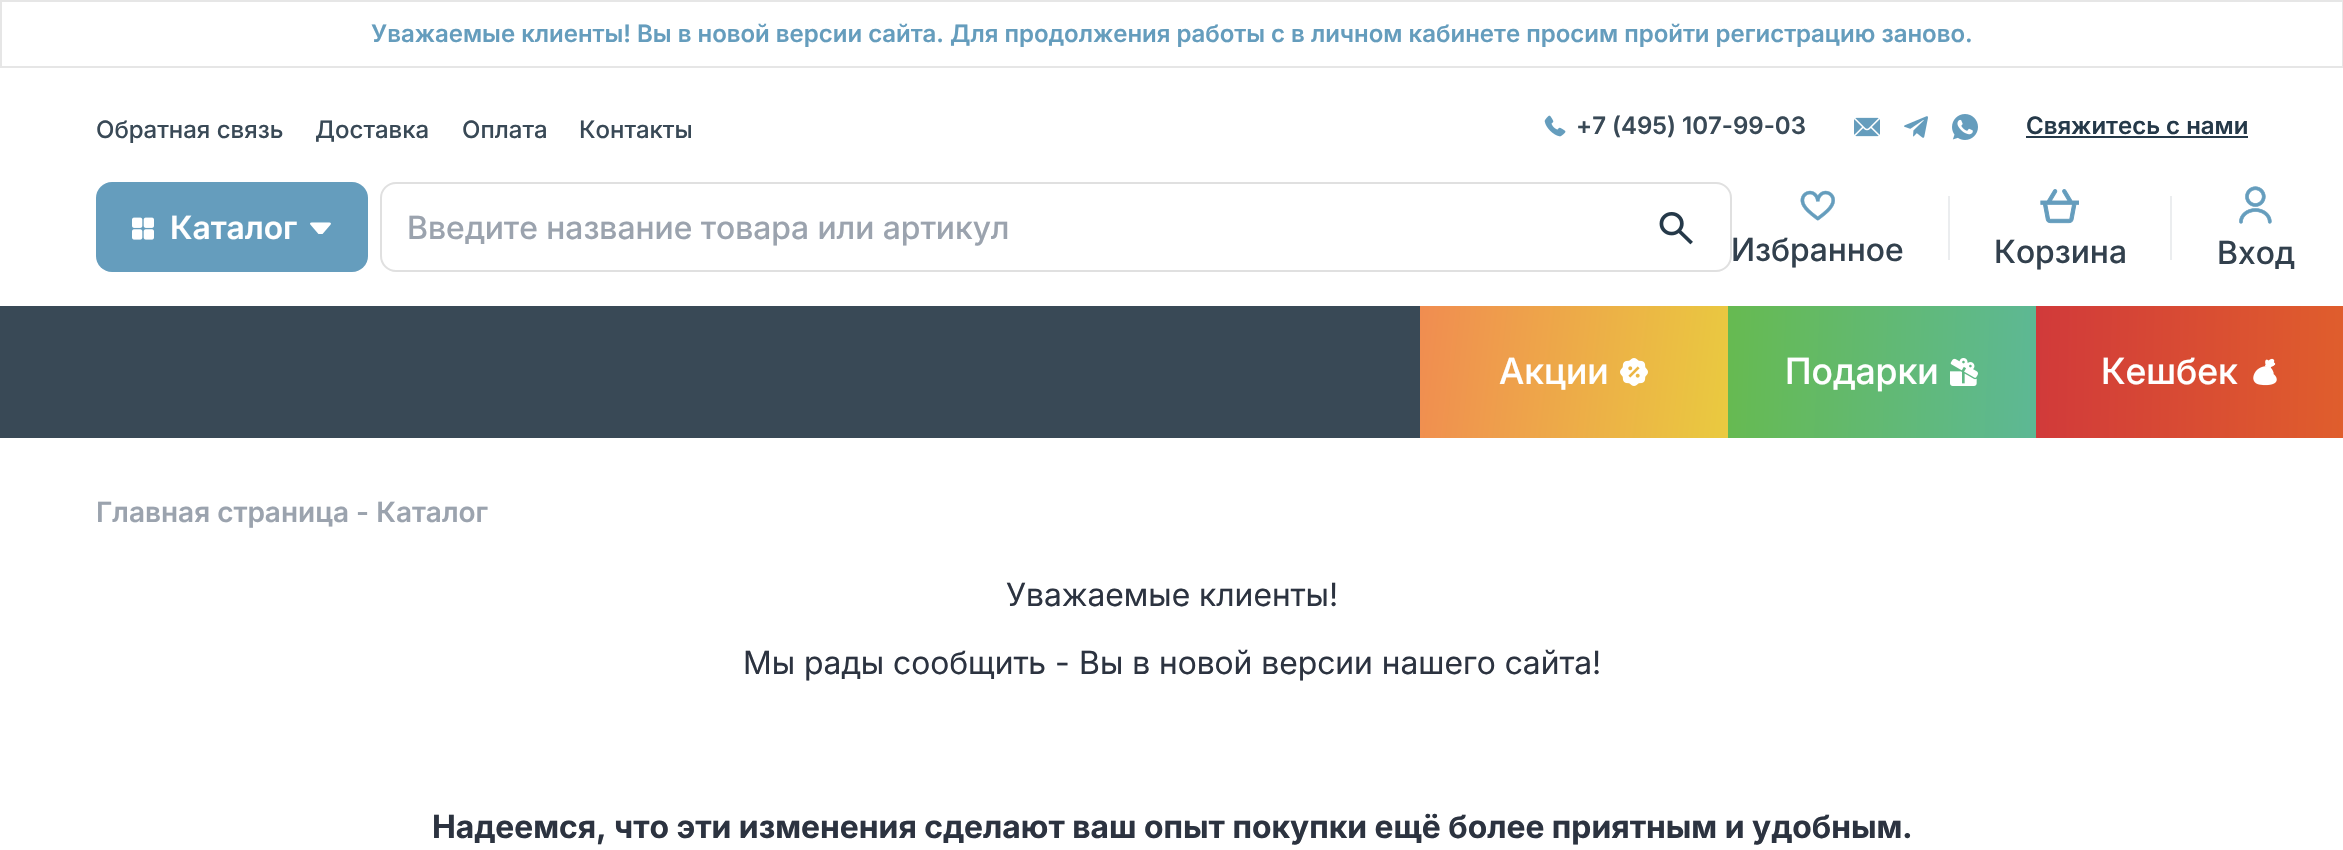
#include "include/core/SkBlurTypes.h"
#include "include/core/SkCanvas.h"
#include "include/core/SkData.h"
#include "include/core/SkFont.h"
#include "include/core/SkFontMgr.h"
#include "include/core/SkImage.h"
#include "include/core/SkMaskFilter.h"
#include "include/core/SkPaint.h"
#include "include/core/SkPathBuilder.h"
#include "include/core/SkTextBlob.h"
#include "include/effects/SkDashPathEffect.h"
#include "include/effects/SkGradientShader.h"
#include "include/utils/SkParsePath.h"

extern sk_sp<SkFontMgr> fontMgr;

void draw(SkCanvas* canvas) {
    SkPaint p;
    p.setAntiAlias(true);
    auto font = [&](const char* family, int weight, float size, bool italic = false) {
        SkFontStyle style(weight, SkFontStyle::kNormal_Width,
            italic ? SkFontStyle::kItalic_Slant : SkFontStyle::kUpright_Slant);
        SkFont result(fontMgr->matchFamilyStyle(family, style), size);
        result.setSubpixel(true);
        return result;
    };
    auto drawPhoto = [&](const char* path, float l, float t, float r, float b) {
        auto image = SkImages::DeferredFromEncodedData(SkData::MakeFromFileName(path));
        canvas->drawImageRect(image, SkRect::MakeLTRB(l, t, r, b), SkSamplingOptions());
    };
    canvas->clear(0xFFFFFFFF);
    p.setStyle(SkPaint::kStroke_Style);
    p.setStrokeWidth(2);
    p.setColor(0xFFE6E6E6);
    canvas->drawRect(SkRect::MakeLTRB(1, 1, 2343, 67), p);
    auto font1 = font("Inter", 600, 24);
    p.setStyle(SkPaint::kFill_Style);
    p.setColor(0xFF659DBD);
    canvas->drawString("Уважаемые клиенты! Вы в новой версии сайта. Для продолжения работы с в личном кабинете просим пройти регистрацию заново.", 371, 42, font1, p);
    auto font2 = font("Inter", 500, 24);
    p.setColor(0xFF394956);
    {
        const struct { const char* s; float x, y; } items[] = {
            {"Обратная связь", 96, 138},
            {"Доставка", 315, 138},
            {"Оплата", 462, 138},
            {"Контакты", 579, 138},
        };
        for (auto [s, x, y] : items) {
            canvas->drawString(s, x, y, font2, p);
        }
    }
    drawPhoto("media/1.png", 1544, 115, 1566, 137);
    canvas->drawString("+7 (495) 107-99-03", 1576, 134, font1, p);
    drawPhoto("media/2.png", 1854, 117, 1880, 137);
    drawPhoto("media/3.png", 1904, 116, 1928, 138);
    drawPhoto("media/4.png", 1952, 114, 1978, 140);
    p.setColor(0xFF253949);
    canvas->drawString("Свяжитесь с нами", 2026, 134, font1, p);
    canvas->drawRect(SkRect::MakeLTRB(2026, 136, 2248, 138), p);
    p.setColor(0xFF659DBD);
    canvas->drawRoundRect(SkRect::MakeLTRB(96, 182, 368, 272), 16, 16, p);
    drawPhoto("media/5.png", 132, 217, 154, 240);
    auto font3 = font("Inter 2", 600, 32);
    p.setColor(0xFFFFFFFF);
    canvas->drawString("Каталог", 170, 239, font3, p);
    drawPhoto("media/6.png", 310, 222, 331, 234);
    p.setStyle(SkPaint::kStroke_Style);
    p.setColor(0xFFE0E0E0);
    canvas->drawRoundRect(SkRect::MakeLTRB(381, 183, 1731, 271), 15, 15, p);
    auto font4 = font("Inter 2", 500, 32);
    p.setStyle(SkPaint::kFill_Style);
    p.setColor(0xFF9BA3AE);
    canvas->drawString("Введите название товара или артикул", 407, 239, font4, p);
    drawPhoto("media/7.png", 1659, 212, 1693, 245);
    drawPhoto("media/8.png", 1800, 190, 1835, 221);
    p.setColor(0xFF32404D);
    canvas->drawString("Избранное", 1731, 261, font4, p);
    p.setColor(0xFFEBEDEF);
    canvas->drawRect(SkRect::MakeLTRB(1948, 196, 1950, 260), p);
    drawPhoto("media/9.png", 2040, 189, 2079, 224);
    p.setColor(0xFF32404D);
    canvas->drawString("Корзина", 1994, 263, font4, p);
    p.setColor(0xFFEBEDEF);
    canvas->drawRect(SkRect::MakeLTRB(2170, 196, 2172, 260), p);
    drawPhoto("media/10.png", 2239, 186, 2272, 224);
    p.setColor(0xFF32404D);
    canvas->drawString("Вход", 2217, 264, font4, p);
    p.setColor(0xFF394956);
    canvas->drawRect(SkRect::MakeLTRB(0, 306, 1420, 438), p);
    {
        const SkColor colors[] = {0xFFF18752, 0xFFE8D73C};
        const float stops[] = {0, 1};
        const SkPoint ends[] = {{1385, 350}, {1800, 398}};
        p.setShader(SkGradientShader::MakeLinear(ends, colors, stops, 2, SkTileMode::kClamp));
        p.setAlpha(255);
    }
    canvas->drawRect(SkRect::MakeLTRB(1420, 306, 1728, 438), p);
    auto font5 = font("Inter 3", 500, 36);
    p.setShader(nullptr);
    p.setColor(0xFFFFFFFF);
    canvas->drawString("Акции", 1499, 384, font5, p);
    drawPhoto("media/11.png", 1620, 358, 1648, 386);
    {
        const SkColor colors[] = {0xFF66BA52, 0xFF5CB89C};
        const float stops[] = {0.02f, 1};
        const SkPoint ends[] = {{1725, 365}, {2072, 380}};
        p.setShader(SkGradientShader::MakeLinear(ends, colors, stops, 2, SkTileMode::kClamp));
        p.setAlpha(255);
    }
    canvas->drawRect(SkRect::MakeLTRB(1728, 306, 2036, 438), p);
    p.setShader(nullptr);
    p.setColor(0xFFFFFFFF);
    canvas->drawString("Подарки", 1785, 384, font5, p);
    drawPhoto("media/12.png", 1950, 358, 1978, 386);
    {
        const SkColor colors[] = {0xFFD13A3A, 0xFFE1612B};
        const float stops[] = {0.01f, 1};
        const SkPoint ends[] = {{2034, 368}, {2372, 377}};
        p.setShader(SkGradientShader::MakeLinear(ends, colors, stops, 2, SkTileMode::kClamp));
        p.setAlpha(255);
    }
    canvas->drawRect(SkRect::MakeLTRB(2036, 306, 2343, 438), p);
    p.setShader(nullptr);
    p.setColor(0xFFFFFFFF);
    canvas->drawString("Кешбек", 2101, 384, font5, p);
    drawPhoto("media/13.png", 2253, 358, 2277, 386);
    auto font6 = font("Inter", 600, 28);
    p.setColor(0xFF9BA3AE);
    canvas->drawString("Главная страница - Каталог", 96, 522, font6, p);
    auto font7 = font("Inter", 400, 32);
    p.setColor(0xFF2C3340);
    canvas->drawString("Уважаемые клиенты", 1006, 606, font7, p);
    auto font8 = font("Inter 2", 400, 32);
    canvas->drawString("!", 1329, 606, font8, p);
    canvas->drawString("Мы рады сообщить", 743, 674, font7, p);
    canvas->drawString("-", 1055, 674, font8, p);
    canvas->drawString("Вы в новой версии нашего сайта", 1079, 674, font7, p);
    canvas->drawString("!", 1592, 674, font8, p);
    auto font9 = font("Inter", 700, 32);
    canvas->drawString("Надеемся", 432, 838, font9, p);
    auto font10 = font("Inter 2", 700, 32);
    canvas->drawString(",", 596, 838, font10, p);
    canvas->drawString("что эти изменения сделают ваш опыт покупки ещё более приятным и удобным", 614, 838, font9, p);
    canvas->drawString(".", 1902, 838, font10, p);
}
